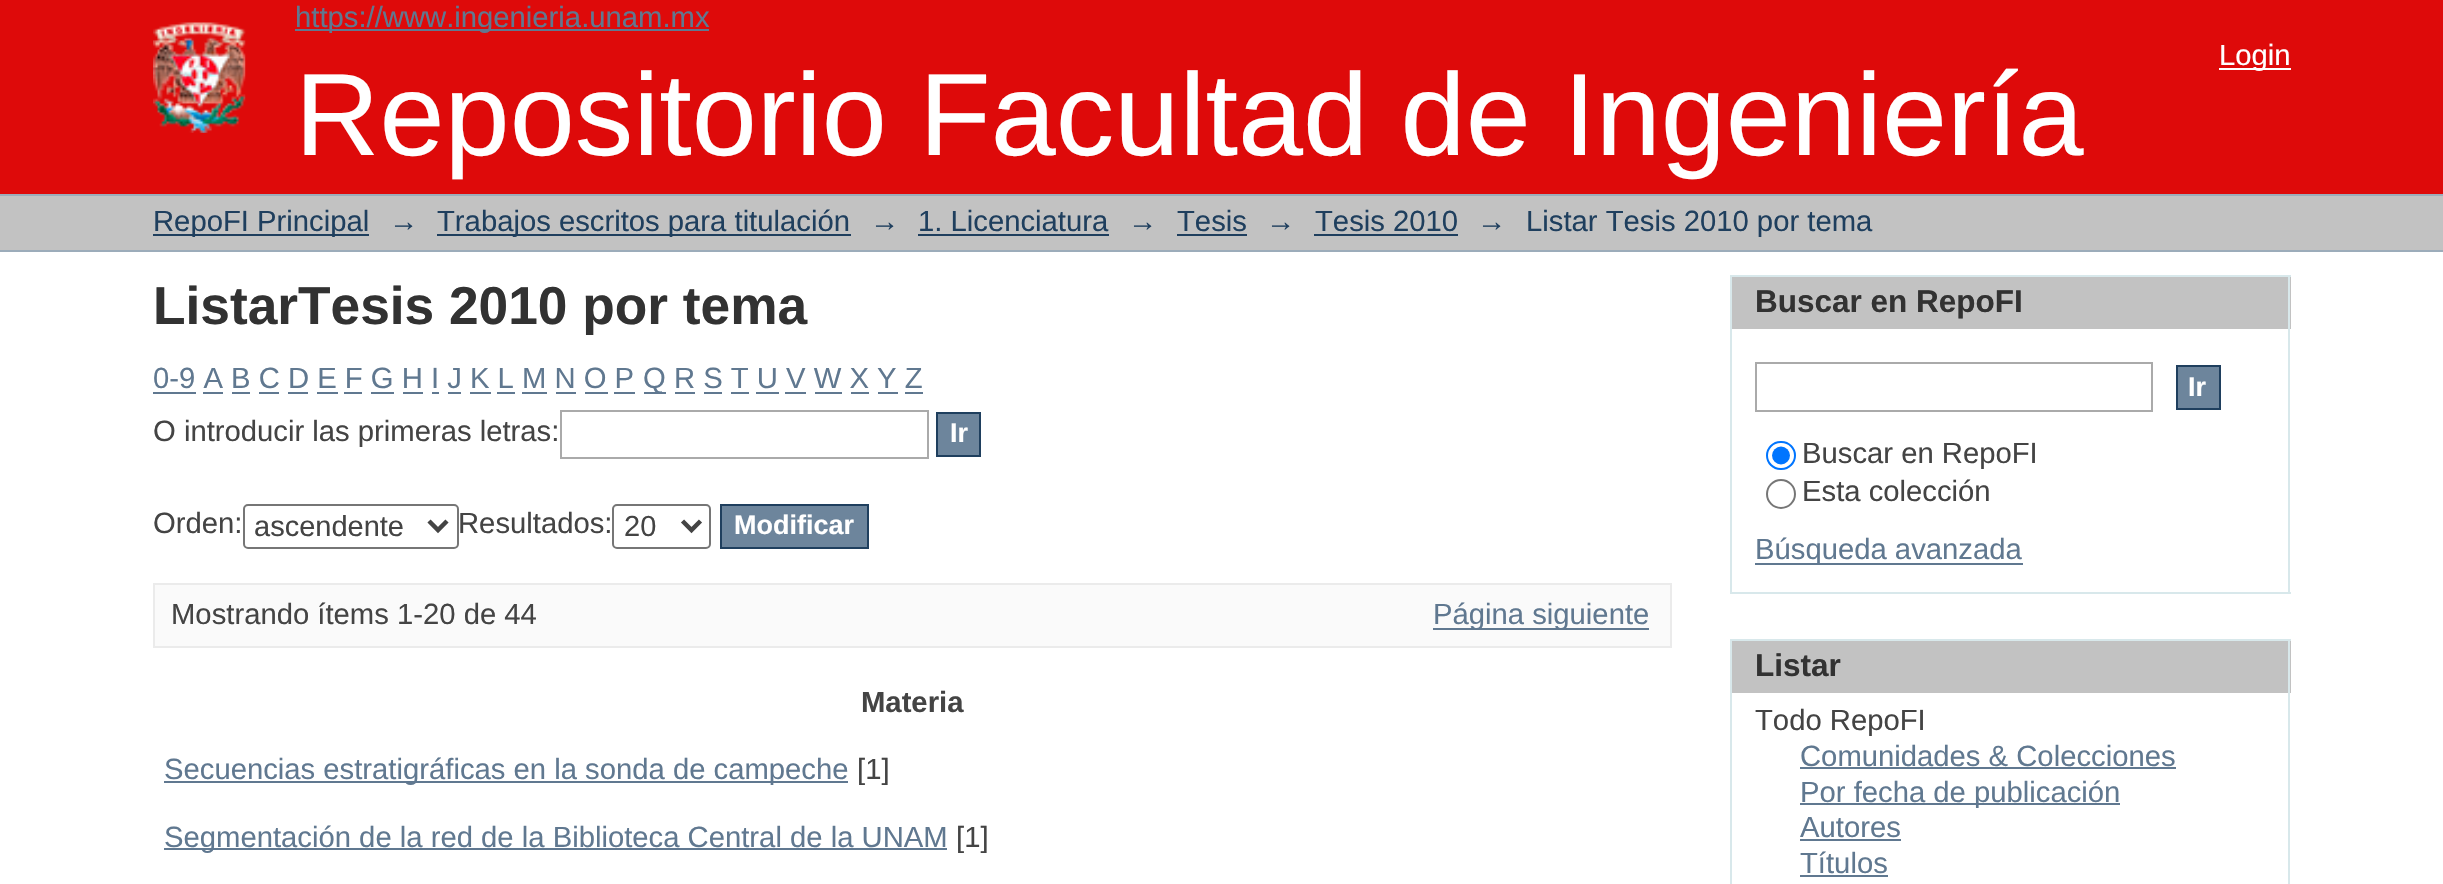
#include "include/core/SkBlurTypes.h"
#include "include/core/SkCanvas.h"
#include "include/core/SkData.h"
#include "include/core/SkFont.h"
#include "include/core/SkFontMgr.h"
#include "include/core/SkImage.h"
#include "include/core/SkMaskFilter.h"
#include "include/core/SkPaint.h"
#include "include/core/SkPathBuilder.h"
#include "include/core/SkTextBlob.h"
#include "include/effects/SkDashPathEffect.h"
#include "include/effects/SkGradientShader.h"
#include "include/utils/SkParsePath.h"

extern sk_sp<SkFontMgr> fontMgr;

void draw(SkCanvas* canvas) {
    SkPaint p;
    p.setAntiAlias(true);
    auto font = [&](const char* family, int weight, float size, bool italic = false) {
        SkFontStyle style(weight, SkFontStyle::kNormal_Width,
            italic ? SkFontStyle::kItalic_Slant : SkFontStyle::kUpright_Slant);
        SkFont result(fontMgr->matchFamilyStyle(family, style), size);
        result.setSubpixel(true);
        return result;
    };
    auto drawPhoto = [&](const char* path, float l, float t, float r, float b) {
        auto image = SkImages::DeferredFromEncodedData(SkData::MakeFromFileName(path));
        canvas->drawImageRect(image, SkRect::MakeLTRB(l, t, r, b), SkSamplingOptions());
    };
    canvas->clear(0xFFFFFFFF);
    p.setColor(0xFFDE0A0A);
    canvas->drawRect(SkRect::MakeLTRB(0, 0, 2443, 194), p);
    p.setColor(0xFF607890);
    canvas->drawRect(SkRect::MakeLTRB(295, 29, 709, 31), p);
    auto font1 = font("Liberation Sans", 400, 29.25f);
    canvas->drawString("https://www.ingenieria.unam.mx", 295, 27, font1, p);
    p.setColor(0xFFFFFFFF);
    canvas->drawRect(SkRect::MakeLTRB(2219, 68, 2291, 70), p);
    canvas->drawString("Login", 2219, 65, font1, p);
    drawPhoto("media/1.png", 153, 22, 246, 133);
    auto font2 = font("Liberation Sans", 400, 117);
    canvas->drawString("Repositorio Facultad de Ingeniería", 295, 155, font2, p);
    {
        const struct { float l, t, r, b; SkColor color; } items[] = {
            {0, 196, 2443, 250, 0xFFC2C2C2},
            {0, 194, 2443, 196, 0xFF9CACBA},
            {0, 250, 2443, 252, 0xFF9CACBA},
            {153, 234, 369, 236, 0xFF1F3F5E},
        };
        for (auto [l, t, r, b, color] : items) {
            p.setColor(color);
            canvas->drawRect(SkRect::MakeLTRB(l, t, r, b), p);
        }
    }
    canvas->drawString("RepoFI Principal", 153, 231, font1, p);
    canvas->drawString("→", 389, 231, font1, p);
    canvas->drawRect(SkRect::MakeLTRB(437, 234, 851, 236), p);
    {
        const struct { const char* s; float x, y; } items[] = {
            {"Trabajos escritos para titulación", 437, 231},
            {"→", 870, 231},
            {"1. Licenciatura", 918, 231},
        };
        for (auto [s, x, y] : items) {
            canvas->drawString(s, x, y, font1, p);
        }
    }
    canvas->drawRect(SkRect::MakeLTRB(918, 234, 1109, 236), p);
    canvas->drawString("→", 1128, 231, font1, p);
    canvas->drawString("Tesis", 1177, 231, font1, p);
    canvas->drawRect(SkRect::MakeLTRB(1177, 234, 1247, 236), p);
    canvas->drawString("→", 1266, 231, font1, p);
    canvas->drawString("Tesis 2010", 1315, 231, font1, p);
    canvas->drawRect(SkRect::MakeLTRB(1314, 234, 1458, 236), p);
    canvas->drawString("→", 1477, 231, font1, p);
    canvas->drawString("Listar Tesis 2010 por tema", 1526, 231, font1, p);
    auto font3 = font("Liberation Sans", 700, 53.25f);
    p.setColor(0xFF323232);
    canvas->drawString("ListarTesis 2010 por tema", 153, 324, font3, p);
    p.setColor(0xFF607890);
    canvas->drawString("0-9 A B C D E F G H I J K L M N O P", 153, 388, font1, p);
    canvas->drawRect(SkRect::MakeLTRB(153, 392, 196, 394), p);
    canvas->drawRect(SkRect::MakeLTRB(644, 392, 666, 394), p);
    canvas->drawString("Q R S T U V W X Y Z", 643, 388, font1, p);
    {
        const struct { float l, t, r, b; SkColor color; } items[] = {
            {203, 392, 223, 394, 0xFF607890},
            {232, 392, 250, 394, 0xFF607890},
            {259, 392, 279, 394, 0xFF607890},
            {288, 392, 308, 394, 0xFF607890},
            {317, 392, 338, 394, 0xFF607890},
            {344, 392, 362, 394, 0xFF607890},
            {371, 392, 394, 394, 0xFF607890},
            {403, 392, 423, 394, 0xFF607890},
            {432, 392, 439, 394, 0xFF607890},
            {448, 392, 461, 394, 0xFF607890},
            {470, 392, 491, 394, 0xFF607890},
            {497, 392, 515, 394, 0xFF607890},
            {522, 392, 547, 394, 0xFF607890},
            {556, 392, 576, 394, 0xFF607890},
            {585, 392, 608, 394, 0xFF607890},
            {614, 392, 635, 394, 0xFF607890},
            {675, 392, 695, 394, 0xFF607890},
            {704, 392, 722, 394, 0xFF607890},
            {731, 392, 749, 394, 0xFF607890},
            {756, 392, 779, 394, 0xFF607890},
            {785, 392, 806, 394, 0xFF607890},
            {815, 392, 842, 394, 0xFF607890},
            {851, 392, 869, 394, 0xFF607890},
            {878, 392, 898, 394, 0xFF607890},
            {905, 392, 923, 394, 0xFF607890},
        };
        for (auto [l, t, r, b, color] : items) {
            p.setColor(color);
            canvas->drawRect(SkRect::MakeLTRB(l, t, r, b), p);
        }
    }
    p.setColor(0xFF444444);
    canvas->drawString("O introducir las primeras letras:", 153, 441, font1, p);
    p.setStyle(SkPaint::kStroke_Style);
    p.setStrokeWidth(2);
    p.setColor(0xFFAAAAAA);
    canvas->drawRect(SkRect::MakeLTRB(561, 411, 928, 458), p);
    p.setStyle(SkPaint::kFill_Style);
    p.setColor(0xFF6D859C);
    canvas->drawRect(SkRect::MakeLTRB(937, 413, 980, 456), p);
    p.setStyle(SkPaint::kStroke_Style);
    p.setColor(0xFF1F3F5E);
    canvas->drawRect(SkRect::MakeLTRB(937, 413, 980, 456), p);
    auto font4 = font("Liberation Sans", 700, 27);
    p.setStyle(SkPaint::kFill_Style);
    p.setColor(0xFFFFFFFF);
    canvas->drawString("Ir", 950, 442, font4, p);
    p.setColor(0xFF444444);
    canvas->drawString("Orden:", 153, 533, font1, p);
    p.setStyle(SkPaint::kStroke_Style);
    p.setColor(0xFF767676);
    canvas->drawRoundRect(SkRect::MakeLTRB(244, 505, 458, 548), 4, 4, p);
    p.setStrokeWidth(4.5f);
    p.setColor(0xFF444444);
    canvas->drawPath(SkPathBuilder().moveTo(429, 521).lineTo(438, 530).lineTo(447, 521).detach(), p);
    auto font5 = font("Liberation Sans", 400, 29);
    p.setStyle(SkPaint::kFill_Style);
    canvas->drawString("ascendente", 254, 536, font5, p);
    canvas->drawString("Resultados:", 458, 533, font1, p);
    p.setStyle(SkPaint::kStroke_Style);
    p.setStrokeWidth(2);
    p.setColor(0xFF767676);
    canvas->drawRoundRect(SkRect::MakeLTRB(613, 505, 710, 548), 4, 4, p);
    p.setStrokeWidth(4.5f);
    p.setColor(0xFF444444);
    canvas->drawPath(SkPathBuilder().moveTo(682.5f, 521).lineTo(691.5f, 530).lineTo(700.5f, 521).detach(), p);
    p.setStyle(SkPaint::kFill_Style);
    canvas->drawString("20", 624, 536, font5, p);
    p.setColor(0xFF6D859C);
    canvas->drawRect(SkRect::MakeLTRB(721, 505, 868, 548), p);
    p.setStyle(SkPaint::kStroke_Style);
    p.setStrokeWidth(2);
    p.setColor(0xFF1F3F5E);
    canvas->drawRect(SkRect::MakeLTRB(721, 505, 868, 548), p);
    p.setStyle(SkPaint::kFill_Style);
    p.setColor(0xFFFFFFFF);
    canvas->drawString("Modificar", 734, 534, font4, p);
    p.setColor(0xFFFAFAFA);
    canvas->drawRect(SkRect::MakeLTRB(154, 584, 1671, 647), p);
    p.setStyle(SkPaint::kStroke_Style);
    p.setColor(0xFFEBEBEB);
    canvas->drawRect(SkRect::MakeLTRB(154, 584, 1671, 647), p);
    p.setStyle(SkPaint::kFill_Style);
    p.setColor(0xFF444444);
    canvas->drawString("Mostrando ítems 1-20 de 44", 171, 624, font1, p);
    p.setColor(0xFF607890);
    canvas->drawRect(SkRect::MakeLTRB(1433, 628, 1649, 630), p);
    canvas->drawString("Página siguiente", 1433, 624, font1, p);
    auto font6 = font("Liberation Sans", 700, 29.25f);
    p.setColor(0xFF444444);
    canvas->drawString("Materia", 861, 712, font6, p);
    p.setColor(0xFF607890);
    canvas->drawRect(SkRect::MakeLTRB(164, 781, 848, 783), p);
    canvas->drawString("Secuencias estratigráficas en la sonda de campeche", 164, 779, font1, p);
    p.setColor(0xFF444444);
    canvas->drawString("[1]", 857, 779, font1, p);
    p.setColor(0xFF607890);
    canvas->drawRect(SkRect::MakeLTRB(164, 848, 947, 850), p);
    canvas->drawString("Segmentación de la red de la Biblioteca Central de la UNAM", 164, 847, font1, p);
    p.setColor(0xFF444444);
    canvas->drawString("[1]", 956, 847, font1, p);
    {
        const struct { float l, t, r, b; SkColor color; } items[] = {
            {1732, 277, 2291, 329, 0xFFC2C2C2},
            {1730, 275, 2291, 277, 0xFFD8E8EB},
            {2288, 275, 2290, 594, 0xFFD8E8EB},
            {1730, 275, 1732, 329, 0xFFD8E8EB},
        };
        for (auto [l, t, r, b, color] : items) {
            p.setColor(color);
            canvas->drawRect(SkRect::MakeLTRB(l, t, r, b), p);
        }
    }
    auto font7 = font("Liberation Sans", 700, 31.5f);
    p.setColor(0xFF323232);
    canvas->drawString("Buscar en RepoFI", 1755, 312, font7, p);
    p.setColor(0xFFD8E8EB);
    canvas->drawRect(SkRect::MakeLTRB(1730, 592, 2291, 594), p);
    canvas->drawRect(SkRect::MakeLTRB(1730, 329, 1732, 594), p);
    p.setStyle(SkPaint::kStroke_Style);
    p.setColor(0xFFAAAAAA);
    canvas->drawRect(SkRect::MakeLTRB(1756, 363, 2152, 411), p);
    p.setStyle(SkPaint::kFill_Style);
    p.setColor(0xFF6D859C);
    canvas->drawRect(SkRect::MakeLTRB(2177, 366, 2220, 409), p);
    p.setStyle(SkPaint::kStroke_Style);
    p.setColor(0xFF1F3F5E);
    canvas->drawRect(SkRect::MakeLTRB(2177, 366, 2220, 409), p);
    p.setStyle(SkPaint::kFill_Style);
    p.setColor(0xFFFFFFFF);
    canvas->drawString("Ir", 2188, 396, font4, p);
    p.setStyle(SkPaint::kStroke_Style);
    p.setColor(0xFF0075FF);
    canvas->drawRoundRect(SkRect::MakeLTRB(1767, 442, 1795, 469), 13.5f, 13.5f, p);
    p.setStyle(SkPaint::kFill_Style);
    canvas->drawCircle(1781, 455.5f, 9, p);
    p.setColor(0xFF444444);
    canvas->drawString("Buscar en RepoFI", 1802, 463, font1, p);
    p.setStyle(SkPaint::kStroke_Style);
    p.setColor(0xFF767676);
    canvas->drawCircle(1781, 494, 14, p);
    p.setStyle(SkPaint::kFill_Style);
    p.setColor(0xFF444444);
    canvas->drawString("Esta colección", 1802, 501, font1, p);
    p.setColor(0xFF607890);
    canvas->drawRect(SkRect::MakeLTRB(1755, 563, 2023, 565), p);
    canvas->drawString("Búsqueda avanzada", 1755, 559, font1, p);
    {
        const struct { float l, t, r, b; SkColor color; } items[] = {
            {1732, 641, 2291, 693, 0xFFC2C2C2},
            {1730, 639, 2291, 641, 0xFFD8E8EB},
            {2288, 639, 2290, 884, 0xFFD8E8EB},
            {1730, 639, 1732, 884, 0xFFD8E8EB},
        };
        for (auto [l, t, r, b, color] : items) {
            p.setColor(color);
            canvas->drawRect(SkRect::MakeLTRB(l, t, r, b), p);
        }
    }
    p.setColor(0xFF323232);
    canvas->drawString("Listar", 1755, 676, font7, p);
    p.setColor(0xFF444444);
    canvas->drawString("Todo RepoFI", 1755, 730, font1, p);
    p.setColor(0xFF607890);
    canvas->drawString("Comunidades & Colecciones", 1800, 766, font1, p);
    canvas->drawRect(SkRect::MakeLTRB(1800, 767, 2176, 769), p);
    canvas->drawRect(SkRect::MakeLTRB(1800, 803, 2120, 805), p);
    canvas->drawString("Por fecha de publicación", 1800, 802, font1, p);
    canvas->drawString("Autores", 1800, 837, font1, p);
    canvas->drawRect(SkRect::MakeLTRB(1800, 839, 1901, 841), p);
    canvas->drawString("Títulos", 1800, 873, font1, p);
    canvas->drawRect(SkRect::MakeLTRB(1800, 875, 1888, 877), p);
}
